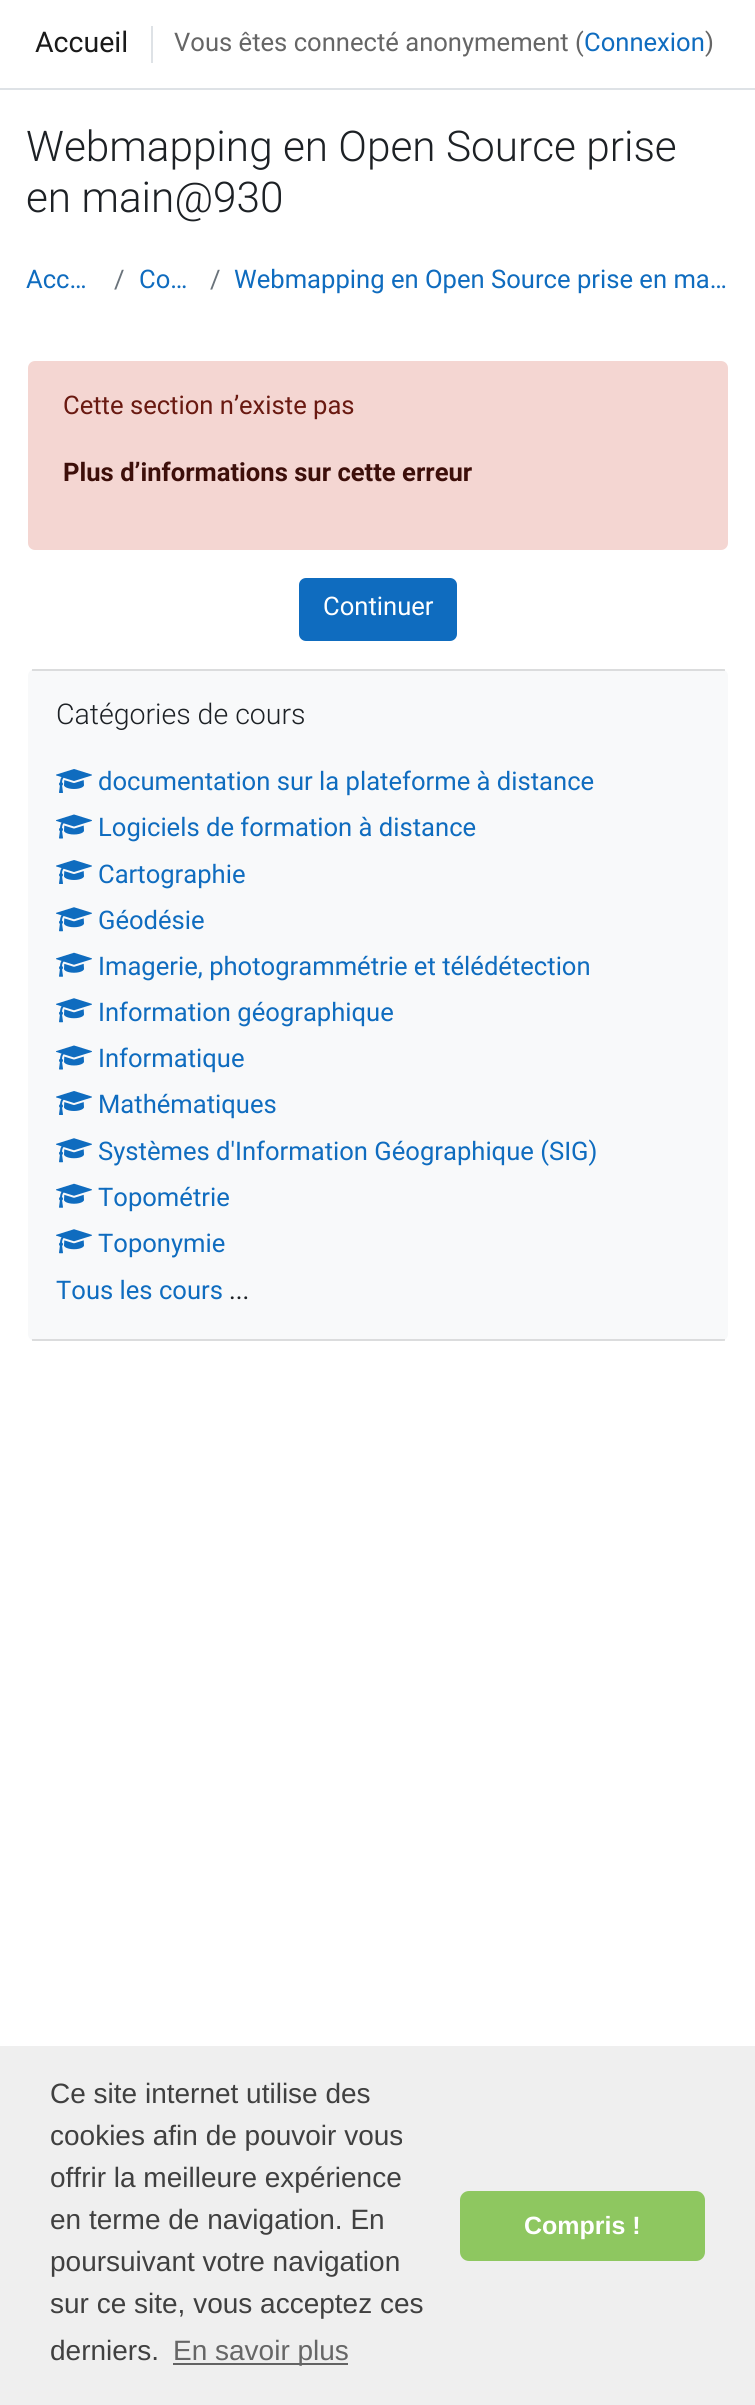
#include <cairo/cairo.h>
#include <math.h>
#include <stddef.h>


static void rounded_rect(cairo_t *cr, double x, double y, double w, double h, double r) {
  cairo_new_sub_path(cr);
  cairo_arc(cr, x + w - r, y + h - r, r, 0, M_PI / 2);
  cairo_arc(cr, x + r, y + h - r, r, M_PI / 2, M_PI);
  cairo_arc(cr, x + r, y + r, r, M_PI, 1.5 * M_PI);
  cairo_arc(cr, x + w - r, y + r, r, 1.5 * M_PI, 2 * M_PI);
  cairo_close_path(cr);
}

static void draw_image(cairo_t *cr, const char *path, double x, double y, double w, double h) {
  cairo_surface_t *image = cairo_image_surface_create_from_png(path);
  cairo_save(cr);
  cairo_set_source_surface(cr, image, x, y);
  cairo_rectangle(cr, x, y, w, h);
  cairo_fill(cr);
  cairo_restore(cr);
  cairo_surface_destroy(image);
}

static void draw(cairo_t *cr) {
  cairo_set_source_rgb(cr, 1, 1, 1);
  cairo_paint(cr);
  cairo_set_source_rgb(cr, 222 / 255.0, 226 / 255.0, 230 / 255.0);
  cairo_rectangle(cr, 0, 88, 755, 2);
  cairo_fill(cr);
  cairo_rectangle(cr, 151, 26, 2, 37);
  cairo_fill(cr);
  cairo_set_source_rgb(cr, 244 / 255.0, 214 / 255.0, 210 / 255.0);
  rounded_rect(cr, 28, 361, 700, 189, 7);
  cairo_fill(cr);
  cairo_set_source_rgb(cr, 15 / 255.0, 108 / 255.0, 191 / 255.0);
  rounded_rect(cr, 300, 579, 156, 61, 6);
  cairo_fill_preserve(cr);
  cairo_stroke(cr);
  cairo_set_source_rgb(cr, 248 / 255.0, 249 / 255.0, 250 / 255.0);
  rounded_rect(cr, 28, 669, 700, 672, 7);
  cairo_fill(cr);
  cairo_set_source_rgba(cr, 0, 0, 0, 0.12);
  cairo_rectangle(cr, 32, 669, 693, 2);
  cairo_fill(cr);
  cairo_rectangle(cr, 32, 1339, 693, 2);
  cairo_fill(cr);
  draw_image(cr, "images/1.png", 56, 769, 36, 24);
  draw_image(cr, "images/2.png", 56, 814, 36, 25);
  draw_image(cr, "images/1.png", 56, 860, 36, 24);
  draw_image(cr, "images/3.png", 56, 907, 36, 25);
  draw_image(cr, "images/4.png", 56, 952, 36, 25);
  draw_image(cr, "images/3.png", 56, 998, 36, 25);
  draw_image(cr, "images/2.png", 56, 1045, 36, 25);
  draw_image(cr, "images/1.png", 56, 1091, 36, 24);
  draw_image(cr, "images/3.png", 56, 1138, 36, 25);
  draw_image(cr, "images/4.png", 56, 1183, 36, 25);
  draw_image(cr, "images/3.png", 56, 1229, 36, 25);
  cairo_set_source_rgb(cr, 239 / 255.0, 239 / 255.0, 239 / 255.0);
  cairo_rectangle(cr, 0, 2046, 755, 359);
  cairo_fill(cr);
  cairo_set_source_rgb(cr, 99 / 255.0, 99 / 255.0, 99 / 255.0);
  cairo_rectangle(cr, 173, 2363, 175, 2);
  cairo_fill(cr);
  cairo_set_source_rgb(cr, 142 / 255.0, 199 / 255.0, 96 / 255.0);
  rounded_rect(cr, 460, 2191, 245, 70, 9);
  cairo_fill(cr);
  cairo_select_font_face(cr, "Roboto", CAIRO_FONT_SLANT_NORMAL, CAIRO_FONT_WEIGHT_NORMAL);
  cairo_set_font_size(cr, 28.5);
  cairo_set_source_rgb(cr, 26 / 255.0, 26 / 255.0, 26 / 255.0);
  cairo_move_to(cr, 35, 52);
  cairo_show_text(cr, "Accueil");
  cairo_set_font_size(cr, 25.6);
  cairo_set_source_rgb(cr, 102 / 255.0, 102 / 255.0, 102 / 255.0);
  cairo_move_to(cr, 174, 51);
  cairo_show_text(cr, "Vous êtes connecté anonymement (");
  cairo_set_source_rgb(cr, 15 / 255.0, 108 / 255.0, 191 / 255.0);
  cairo_move_to(cr, 584, 51);
  cairo_show_text(cr, "Connexion");
  cairo_set_source_rgb(cr, 102 / 255.0, 102 / 255.0, 102 / 255.0);
  cairo_move_to(cr, 705, 51);
  cairo_show_text(cr, ")");
  cairo_select_font_face(cr, "Roboto Light", CAIRO_FONT_SLANT_NORMAL, CAIRO_FONT_WEIGHT_NORMAL);
  cairo_set_font_size(cr, 42.3);
  cairo_set_source_rgb(cr, 29 / 255.0, 33 / 255.0, 37 / 255.0);
  cairo_move_to(cr, 26, 161);
  cairo_show_text(cr, "Webmapping en Open Source prise");
  cairo_move_to(cr, 26, 212);
  cairo_show_text(cr, "en main@930");
  cairo_select_font_face(cr, "Roboto", CAIRO_FONT_SLANT_NORMAL, CAIRO_FONT_WEIGHT_NORMAL);
  cairo_set_font_size(cr, 25.6);
  cairo_set_source_rgb(cr, 15 / 255.0, 108 / 255.0, 191 / 255.0);
  cairo_move_to(cr, 26, 288);
  cairo_show_text(cr, "Acc…");
  cairo_set_source_rgb(cr, 106 / 255.0, 115 / 255.0, 123 / 255.0);
  cairo_move_to(cr, 114, 288);
  cairo_show_text(cr, "/");
  cairo_set_source_rgb(cr, 15 / 255.0, 108 / 255.0, 191 / 255.0);
  cairo_move_to(cr, 139, 288);
  cairo_show_text(cr, "Co…");
  cairo_set_source_rgb(cr, 106 / 255.0, 115 / 255.0, 123 / 255.0);
  cairo_move_to(cr, 210, 288);
  cairo_show_text(cr, "/");
  cairo_set_source_rgb(cr, 15 / 255.0, 108 / 255.0, 191 / 255.0);
  cairo_move_to(cr, 234, 288);
  cairo_show_text(cr, "Webmapping en Open Source prise en ma…");
  cairo_set_source_rgb(cr, 105 / 255.0, 25 / 255.0, 17 / 255.0);
  cairo_move_to(cr, 63, 414);
  cairo_show_text(cr, "Cette section n’existe pas");
  cairo_select_font_face(cr, "Roboto", CAIRO_FONT_SLANT_NORMAL, CAIRO_FONT_WEIGHT_BOLD);
  cairo_set_source_rgb(cr, 61 / 255.0, 15 / 255.0, 10 / 255.0);
  cairo_move_to(cr, 63, 481);
  cairo_show_text(cr, "Plus d’informations sur cette erreur");
  cairo_select_font_face(cr, "Roboto", CAIRO_FONT_SLANT_NORMAL, CAIRO_FONT_WEIGHT_NORMAL);
  cairo_set_source_rgb(cr, 1, 1, 1);
  cairo_move_to(cr, 323, 615);
  cairo_show_text(cr, "Continuer");
  cairo_select_font_face(cr, "Roboto Light", CAIRO_FONT_SLANT_NORMAL, CAIRO_FONT_WEIGHT_NORMAL);
  cairo_set_font_size(cr, 28.5);
  cairo_set_source_rgb(cr, 29 / 255.0, 33 / 255.0, 37 / 255.0);
  cairo_move_to(cr, 56, 724);
  cairo_show_text(cr, "Catégories de cours");
  cairo_select_font_face(cr, "Roboto", CAIRO_FONT_SLANT_NORMAL, CAIRO_FONT_WEIGHT_NORMAL);
  cairo_set_font_size(cr, 25.6);
  cairo_set_source_rgb(cr, 15 / 255.0, 108 / 255.0, 191 / 255.0);
  cairo_move_to(cr, 98, 790);
  cairo_show_text(cr, "documentation sur la plateforme à distance");
  cairo_move_to(cr, 98, 836);
  cairo_show_text(cr, "Logiciels de formation à distance");
  cairo_move_to(cr, 98, 883);
  cairo_show_text(cr, "Cartographie");
  cairo_move_to(cr, 98, 929);
  cairo_show_text(cr, "Géodésie");
  cairo_move_to(cr, 98, 975);
  cairo_show_text(cr, "Imagerie, photogrammétrie et télédétection");
  cairo_move_to(cr, 98, 1021);
  cairo_show_text(cr, "Information géographique");
  cairo_move_to(cr, 98, 1067);
  cairo_show_text(cr, "Informatique");
  cairo_move_to(cr, 98, 1113);
  cairo_show_text(cr, "Mathématiques");
  cairo_move_to(cr, 98, 1160);
  cairo_show_text(cr, "Systèmes d'Information Géographique (SIG)");
  cairo_move_to(cr, 98, 1206);
  cairo_show_text(cr, "Topométrie");
  cairo_move_to(cr, 98, 1252);
  cairo_show_text(cr, "Toponymie");
  cairo_move_to(cr, 56, 1299);
  cairo_show_text(cr, "Tous les cours");
  cairo_set_source_rgb(cr, 29 / 255.0, 33 / 255.0, 37 / 255.0);
  cairo_move_to(cr, 229, 1299);
  cairo_show_text(cr, "...");
  cairo_select_font_face(cr, "Liberation Sans", CAIRO_FONT_SLANT_NORMAL, CAIRO_FONT_WEIGHT_NORMAL);
  cairo_set_font_size(cr, 28);
  cairo_set_source_rgb(cr, 64 / 255.0, 64 / 255.0, 64 / 255.0);
  cairo_move_to(cr, 50, 2103);
  cairo_show_text(cr, "Ce site internet utilise des");
  cairo_move_to(cr, 50, 2145);
  cairo_show_text(cr, "cookies afin de pouvoir vous");
  cairo_move_to(cr, 50, 2187);
  cairo_show_text(cr, "offrir la meilleure expérience");
  cairo_move_to(cr, 50, 2229);
  cairo_show_text(cr, "en terme de navigation. En");
  cairo_move_to(cr, 50, 2271);
  cairo_show_text(cr, "poursuivant votre navigation");
  cairo_move_to(cr, 50, 2313);
  cairo_show_text(cr, "sur ce site, vous acceptez ces");
  cairo_move_to(cr, 50, 2360);
  cairo_show_text(cr, "derniers.");
  cairo_set_source_rgb(cr, 102 / 255.0, 102 / 255.0, 102 / 255.0);
  cairo_move_to(cr, 173, 2360);
  cairo_show_text(cr, "En savoir plus");
  cairo_select_font_face(cr, "Liberation Sans", CAIRO_FONT_SLANT_NORMAL, CAIRO_FONT_WEIGHT_BOLD);
  cairo_set_font_size(cr, 25);
  cairo_set_source_rgb(cr, 1, 1, 1);
  cairo_move_to(cr, 524, 2234);
  cairo_show_text(cr, "Compris !");
}

int main(void) {
  cairo_surface_t *surface = cairo_image_surface_create(CAIRO_FORMAT_RGB24, 755, 2405);
  cairo_t *cr = cairo_create(surface);
  cairo_font_options_t *options = cairo_font_options_create();
  cairo_font_options_set_hint_metrics(options, CAIRO_HINT_METRICS_OFF);
  cairo_font_options_set_hint_style(options, CAIRO_HINT_STYLE_NONE);
  cairo_set_font_options(cr, options);
  cairo_set_miter_limit(cr, 4);
  draw(cr);
  cairo_surface_write_to_png(surface, "out.png");
  cairo_font_options_destroy(options);
  cairo_destroy(cr);
  cairo_surface_destroy(surface);
  return 0;
}
